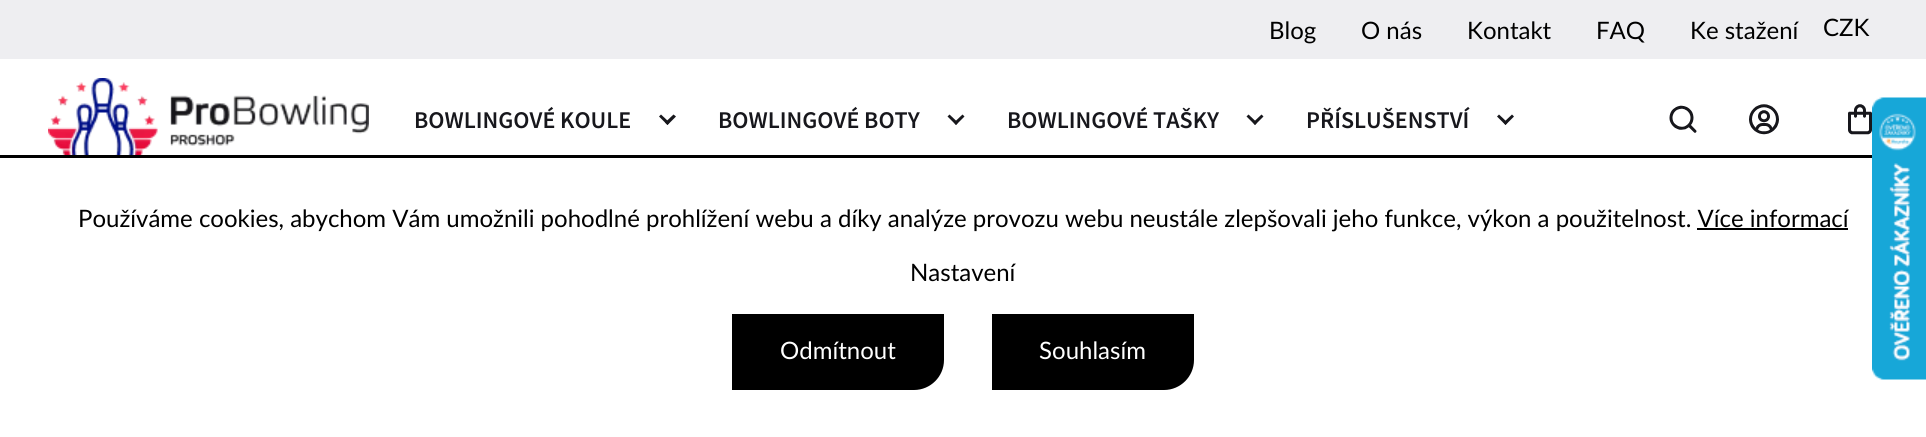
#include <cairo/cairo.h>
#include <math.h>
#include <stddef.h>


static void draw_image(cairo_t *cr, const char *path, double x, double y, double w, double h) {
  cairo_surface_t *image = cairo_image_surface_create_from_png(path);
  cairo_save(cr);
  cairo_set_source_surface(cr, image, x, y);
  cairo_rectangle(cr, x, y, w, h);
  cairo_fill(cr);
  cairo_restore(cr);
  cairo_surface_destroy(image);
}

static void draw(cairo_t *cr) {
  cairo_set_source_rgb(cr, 1, 1, 1);
  cairo_paint(cr);
  cairo_set_source_rgb(cr, 238 / 255.0, 238 / 255.0, 241 / 255.0);
  cairo_rectangle(cr, 0, 0, 1926, 59);
  cairo_fill(cr);
  draw_image(cr, "images/1.png", 48, 78, 321, 77);
  cairo_set_source_rgb(cr, 23 / 255.0, 23 / 255.0, 28 / 255.0);
  cairo_new_path(cr);
  cairo_move_to(cr, 673.5, 114.5);
  cairo_line_to(cr, 676, 116.5);
  cairo_line_to(cr, 667.5, 125);
  cairo_line_to(cr, 665, 122.5);
  cairo_close_path(cr);
  cairo_fill(cr);
  cairo_new_path(cr);
  cairo_move_to(cr, 661, 114.5);
  cairo_line_to(cr, 669.5, 122.5);
  cairo_line_to(cr, 667.5, 125);
  cairo_line_to(cr, 659, 116.5);
  cairo_close_path(cr);
  cairo_fill(cr);
  cairo_new_path(cr);
  cairo_move_to(cr, 962.5, 114.5);
  cairo_line_to(cr, 964.5, 116.5);
  cairo_line_to(cr, 956, 125);
  cairo_line_to(cr, 954, 122.5);
  cairo_close_path(cr);
  cairo_fill(cr);
  cairo_new_path(cr);
  cairo_move_to(cr, 949.5, 114.5);
  cairo_line_to(cr, 958, 122.5);
  cairo_line_to(cr, 956, 125);
  cairo_line_to(cr, 947.5, 116.5);
  cairo_close_path(cr);
  cairo_fill(cr);
  cairo_new_path(cr);
  cairo_move_to(cr, 1261.5, 114.5);
  cairo_line_to(cr, 1263.5, 116.5);
  cairo_line_to(cr, 1255, 125);
  cairo_line_to(cr, 1253, 122.5);
  cairo_close_path(cr);
  cairo_fill(cr);
  cairo_new_path(cr);
  cairo_move_to(cr, 1248.5, 114.5);
  cairo_line_to(cr, 1257, 122.5);
  cairo_line_to(cr, 1255, 125);
  cairo_line_to(cr, 1246.5, 116.5);
  cairo_close_path(cr);
  cairo_fill(cr);
  cairo_new_path(cr);
  cairo_move_to(cr, 1512, 114.5);
  cairo_line_to(cr, 1514, 116.5);
  cairo_line_to(cr, 1505.5, 125);
  cairo_line_to(cr, 1503.5, 122.5);
  cairo_close_path(cr);
  cairo_fill(cr);
  cairo_new_path(cr);
  cairo_move_to(cr, 1499, 114.5);
  cairo_line_to(cr, 1507.5, 122.5);
  cairo_line_to(cr, 1505.5, 125);
  cairo_line_to(cr, 1497, 116.5);
  cairo_close_path(cr);
  cairo_fill(cr);
  draw_image(cr, "images/2.png", 1669, 105, 28, 28);
  draw_image(cr, "images/3.png", 1749, 104, 30, 31);
  draw_image(cr, "images/4.png", 1848, 104, 24, 31);
  cairo_set_source_rgb(cr, 0, 0, 0);
  cairo_rectangle(cr, 0, 155, 1872, 3);
  cairo_fill(cr);
  cairo_rectangle(cr, 1697, 228, 151, 2);
  cairo_fill(cr);
  cairo_new_path(cr);
  cairo_move_to(cr, 732, 314);
  cairo_line_to(cr, 944, 314);
  cairo_line_to(cr, 944, 360);
  cairo_curve_to(cr, 944, 376.5, 930.5, 390, 914, 390);
  cairo_line_to(cr, 732, 390);
  cairo_close_path(cr);
  cairo_fill(cr);
  cairo_new_path(cr);
  cairo_move_to(cr, 992, 314);
  cairo_line_to(cr, 1194, 314);
  cairo_line_to(cr, 1194, 360);
  cairo_curve_to(cr, 1194, 376.5, 1180.5, 390, 1164, 390);
  cairo_line_to(cr, 992, 390);
  cairo_close_path(cr);
  cairo_fill(cr);
  draw_image(cr, "images/5.png", 1872, 97, 54, 283);
  cairo_select_font_face(cr, "Lato", CAIRO_FONT_SLANT_NORMAL, CAIRO_FONT_WEIGHT_NORMAL);
  cairo_set_font_size(cr, 24);
  cairo_move_to(cr, 1269, 39);
  cairo_show_text(cr, "Blog");
  cairo_move_to(cr, 1361, 39);
  cairo_show_text(cr, "O nás");
  cairo_move_to(cr, 1467, 39);
  cairo_show_text(cr, "Kontakt");
  cairo_move_to(cr, 1596, 39);
  cairo_show_text(cr, "FAQ");
  cairo_move_to(cr, 1690, 39);
  cairo_show_text(cr, "Ke stažení");
  cairo_select_font_face(cr, "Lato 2", CAIRO_FONT_SLANT_NORMAL, CAIRO_FONT_WEIGHT_NORMAL);
  cairo_move_to(cr, 1823, 36);
  cairo_show_text(cr, "CZK");
  cairo_select_font_face(cr, "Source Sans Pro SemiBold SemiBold", CAIRO_FONT_SLANT_NORMAL, CAIRO_FONT_WEIGHT_NORMAL);
  cairo_set_source_rgb(cr, 23 / 255.0, 23 / 255.0, 28 / 255.0);
  cairo_move_to(cr, 414, 128);
  cairo_show_text(cr, "BOWLINGOVÉ KOULE");
  cairo_move_to(cr, 718, 128);
  cairo_show_text(cr, "BOWLINGOVÉ BOTY");
  cairo_move_to(cr, 1007, 128);
  cairo_show_text(cr, "BOWLINGOVÉ TAŠKY");
  cairo_move_to(cr, 1306, 128);
  cairo_show_text(cr, "PŘÍSLUŠENSTVÍ");
  cairo_select_font_face(cr, "Lato 2", CAIRO_FONT_SLANT_NORMAL, CAIRO_FONT_WEIGHT_NORMAL);
  cairo_set_source_rgb(cr, 0, 0, 0);
  cairo_move_to(cr, 78, 227);
  cairo_show_text(cr, "Používáme cookies, abychom Vám umožnili pohodlné prohlížení webu a díky analýze provozu webu neustále zlepšovali jeho funkce, výkon a použitelnost. Více informací");
  cairo_move_to(cr, 910, 281);
  cairo_show_text(cr, "Nastavení");
  cairo_set_source_rgb(cr, 1, 1, 1);
  cairo_move_to(cr, 780, 359);
  cairo_show_text(cr, "Odmítnout");
  cairo_move_to(cr, 1039, 359);
  cairo_show_text(cr, "Souhlasím");
}

int main(void) {
  cairo_surface_t *surface = cairo_image_surface_create(CAIRO_FORMAT_RGB24, 1926, 437);
  cairo_t *cr = cairo_create(surface);
  cairo_font_options_t *options = cairo_font_options_create();
  cairo_font_options_set_hint_metrics(options, CAIRO_HINT_METRICS_OFF);
  cairo_font_options_set_hint_style(options, CAIRO_HINT_STYLE_NONE);
  cairo_set_font_options(cr, options);
  cairo_set_miter_limit(cr, 4);
  draw(cr);
  cairo_surface_write_to_png(surface, "out.png");
  cairo_font_options_destroy(options);
  cairo_destroy(cr);
  cairo_surface_destroy(surface);
  return 0;
}
